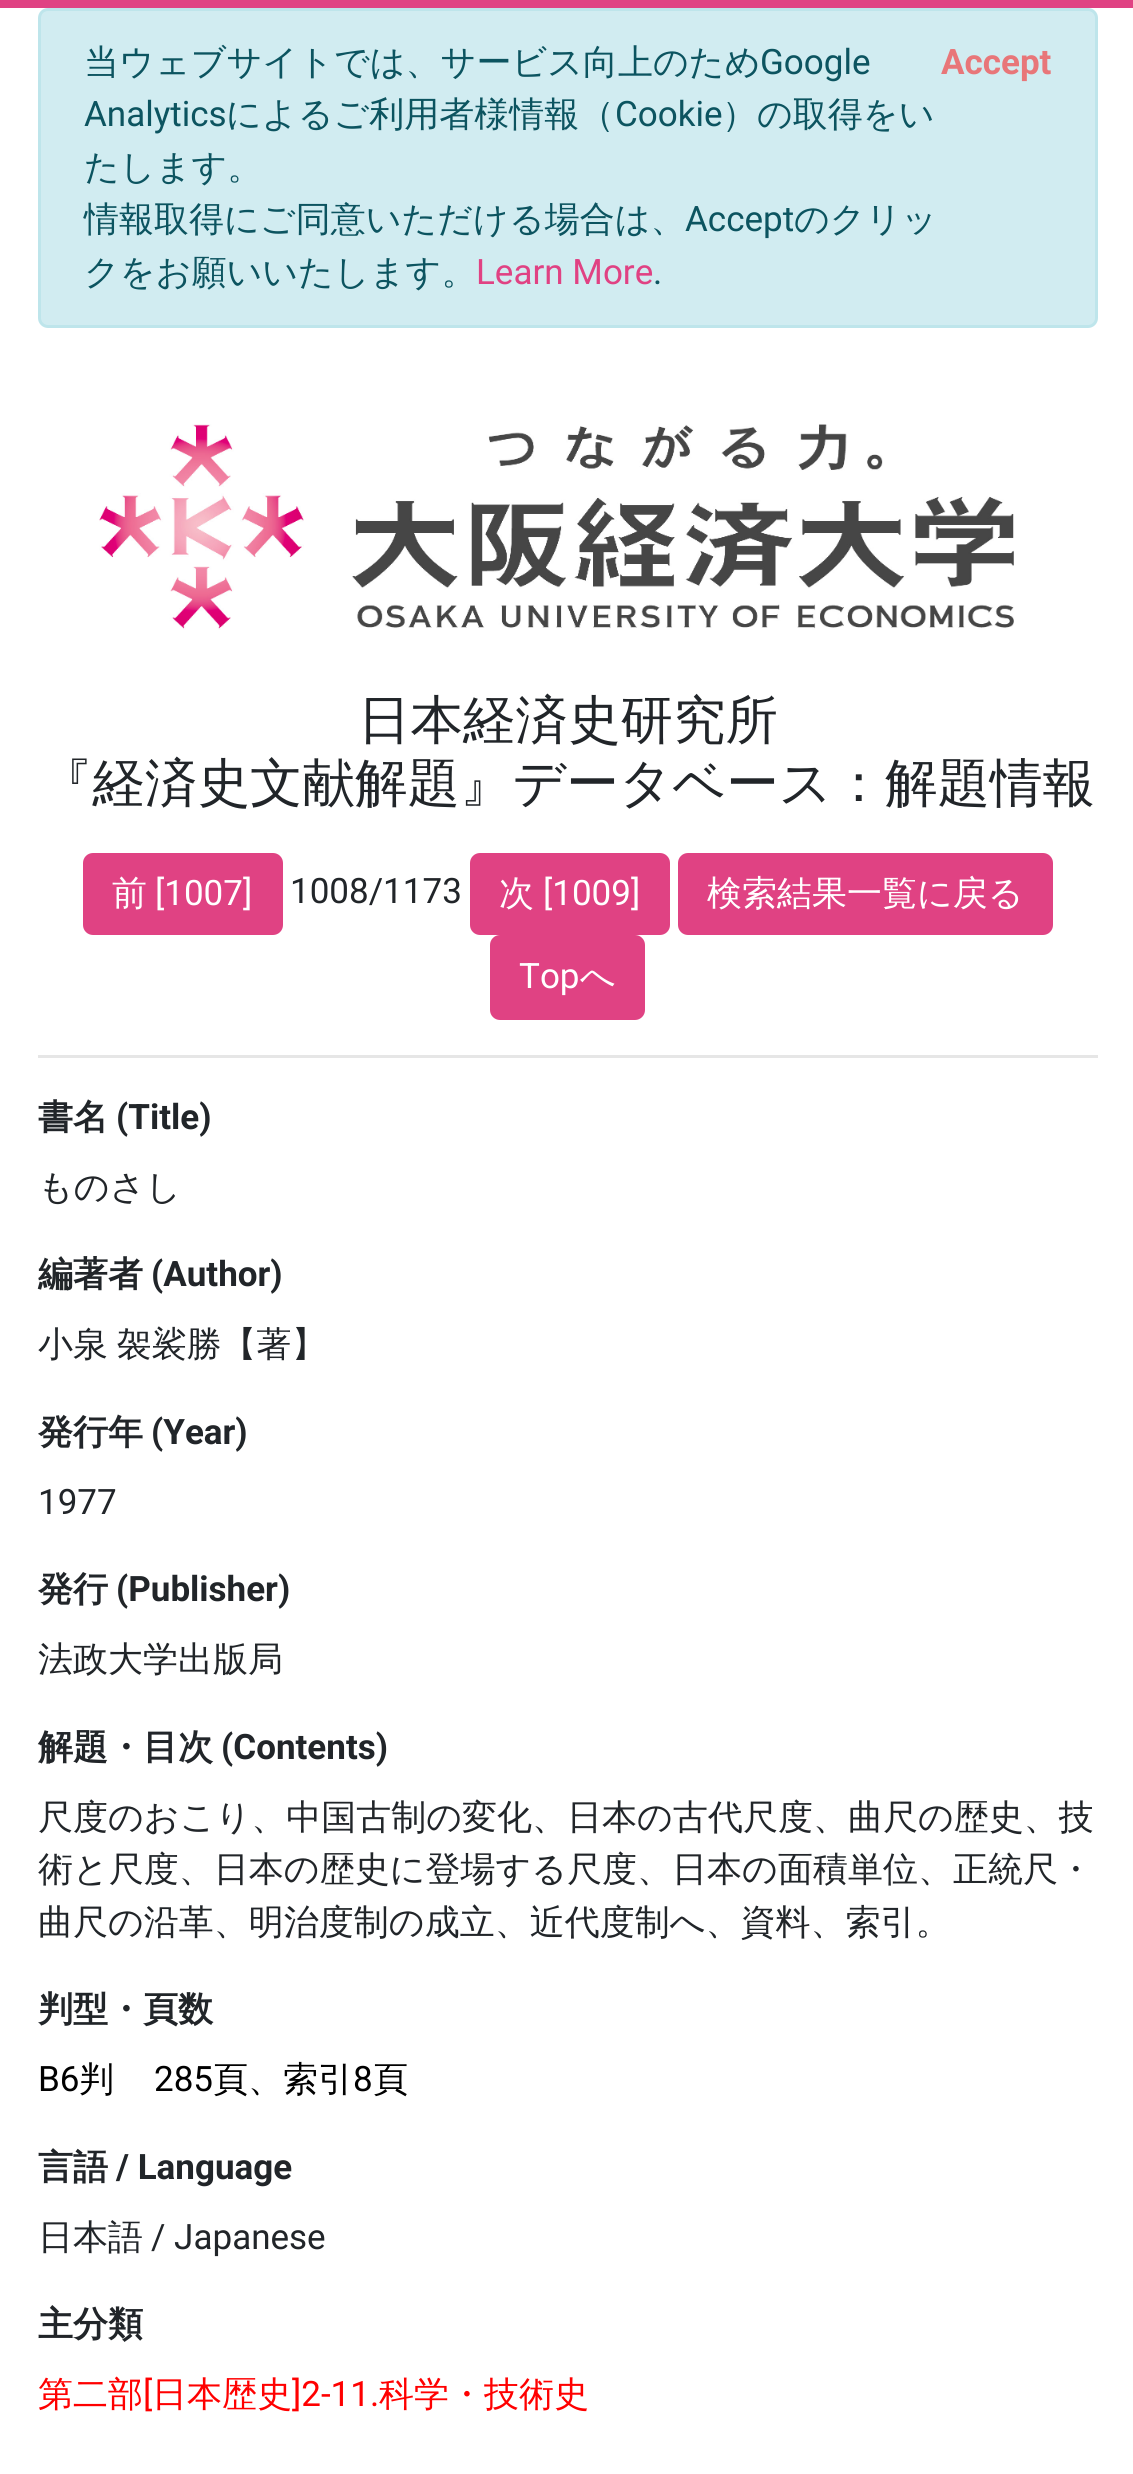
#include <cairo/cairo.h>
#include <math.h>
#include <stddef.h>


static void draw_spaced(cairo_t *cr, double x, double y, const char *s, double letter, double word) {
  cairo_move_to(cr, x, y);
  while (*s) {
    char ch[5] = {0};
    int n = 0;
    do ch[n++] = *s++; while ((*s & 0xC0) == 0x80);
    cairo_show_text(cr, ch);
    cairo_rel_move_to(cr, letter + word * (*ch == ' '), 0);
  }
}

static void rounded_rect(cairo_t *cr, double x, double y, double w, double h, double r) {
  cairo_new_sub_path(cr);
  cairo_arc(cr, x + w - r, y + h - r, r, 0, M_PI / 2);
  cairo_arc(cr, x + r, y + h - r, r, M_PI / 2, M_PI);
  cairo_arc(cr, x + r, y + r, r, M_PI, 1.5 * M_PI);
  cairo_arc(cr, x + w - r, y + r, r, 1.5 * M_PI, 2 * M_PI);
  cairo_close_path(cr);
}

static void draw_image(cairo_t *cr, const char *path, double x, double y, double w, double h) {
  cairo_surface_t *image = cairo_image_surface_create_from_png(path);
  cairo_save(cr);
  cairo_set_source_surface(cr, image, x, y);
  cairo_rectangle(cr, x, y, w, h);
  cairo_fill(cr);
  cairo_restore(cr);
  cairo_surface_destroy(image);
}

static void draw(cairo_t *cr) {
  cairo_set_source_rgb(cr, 1, 1, 1);
  cairo_paint(cr);
  cairo_set_source_rgb(cr, 224 / 255.0, 66 / 255.0, 131 / 255.0);
  cairo_rectangle(cr, 0, 0, 1133, 8);
  cairo_fill(cr);
  cairo_set_source_rgb(cr, 209 / 255.0, 236 / 255.0, 241 / 255.0);
  rounded_rect(cr, 39.5, 9.5, 1057, 317, 8.5);
  cairo_fill_preserve(cr);
  cairo_set_source_rgb(cr, 190 / 255.0, 229 / 255.0, 235 / 255.0);
  cairo_set_line_width(cr, 3);
  cairo_stroke(cr);
  draw_image(cr, "images/1.png", 99, 424, 915, 206);
  cairo_set_source_rgb(cr, 224 / 255.0, 66 / 255.0, 131 / 255.0);
  rounded_rect(cr, 84.5, 854.5, 197, 79, 8.5);
  cairo_fill_preserve(cr);
  cairo_stroke(cr);
  rounded_rect(cr, 471.5, 854.5, 197, 79, 8.5);
  cairo_fill_preserve(cr);
  cairo_stroke(cr);
  rounded_rect(cr, 679.5, 854.5, 372, 79, 8.5);
  cairo_fill_preserve(cr);
  cairo_stroke(cr);
  rounded_rect(cr, 491.5, 936.5, 152, 82, 8.5);
  cairo_fill_preserve(cr);
  cairo_stroke(cr);
  cairo_set_source_rgb(cr, 230 / 255.0, 230 / 255.0, 230 / 255.0);
  cairo_rectangle(cr, 38, 1055, 1060, 3);
  cairo_fill(cr);
  cairo_select_font_face(cr, "WenQuanYi Zen Hei Medium", CAIRO_FONT_SLANT_NORMAL, CAIRO_FONT_WEIGHT_NORMAL);
  cairo_set_font_size(cr, 35);
  cairo_set_source_rgb(cr, 12 / 255.0, 84 / 255.0, 96 / 255.0);
  cairo_move_to(cr, 84, 74);
  cairo_show_text(cr, "当ウェブサイトでは、サービス向上のため");
  cairo_select_font_face(cr, "Roboto", CAIRO_FONT_SLANT_NORMAL, CAIRO_FONT_WEIGHT_NORMAL);
  cairo_move_to(cr, 760, 74);
  cairo_show_text(cr, "Google");
  cairo_select_font_face(cr, "Roboto", CAIRO_FONT_SLANT_NORMAL, CAIRO_FONT_WEIGHT_BOLD);
  cairo_set_source_rgb(cr, 232 / 255.0, 118 / 255.0, 121 / 255.0);
  cairo_move_to(cr, 941, 74);
  cairo_show_text(cr, "Accept");
  cairo_select_font_face(cr, "Roboto", CAIRO_FONT_SLANT_NORMAL, CAIRO_FONT_WEIGHT_NORMAL);
  cairo_set_source_rgb(cr, 12 / 255.0, 84 / 255.0, 96 / 255.0);
  cairo_move_to(cr, 84, 126);
  cairo_show_text(cr, "Analytics");
  cairo_select_font_face(cr, "WenQuanYi Zen Hei Medium", CAIRO_FONT_SLANT_NORMAL, CAIRO_FONT_WEIGHT_NORMAL);
  cairo_move_to(cr, 226, 126);
  cairo_show_text(cr, "によるご利用者様情報（");
  cairo_select_font_face(cr, "Roboto", CAIRO_FONT_SLANT_NORMAL, CAIRO_FONT_WEIGHT_NORMAL);
  cairo_move_to(cr, 615, 126);
  cairo_show_text(cr, "Cookie");
  cairo_select_font_face(cr, "WenQuanYi Zen Hei Medium", CAIRO_FONT_SLANT_NORMAL, CAIRO_FONT_WEIGHT_NORMAL);
  cairo_move_to(cr, 722, 126);
  cairo_show_text(cr, "）の取得をい");
  cairo_move_to(cr, 84, 179);
  cairo_show_text(cr, "たします。");
  cairo_move_to(cr, 84, 231);
  cairo_show_text(cr, "情報取得にご同意いただける場合は、");
  cairo_select_font_face(cr, "Roboto", CAIRO_FONT_SLANT_NORMAL, CAIRO_FONT_WEIGHT_NORMAL);
  cairo_move_to(cr, 685, 231);
  cairo_show_text(cr, "Accept");
  cairo_select_font_face(cr, "WenQuanYi Zen Hei Medium", CAIRO_FONT_SLANT_NORMAL, CAIRO_FONT_WEIGHT_NORMAL);
  cairo_move_to(cr, 794, 231);
  cairo_show_text(cr, "のクリッ");
  cairo_move_to(cr, 84, 284);
  cairo_show_text(cr, "クをお願いいたします。");
  cairo_select_font_face(cr, "Roboto", CAIRO_FONT_SLANT_NORMAL, CAIRO_FONT_WEIGHT_NORMAL);
  cairo_set_source_rgb(cr, 224 / 255.0, 66 / 255.0, 131 / 255.0);
  cairo_move_to(cr, 476, 284);
  cairo_show_text(cr, "Learn More");
  cairo_set_source_rgb(cr, 12 / 255.0, 84 / 255.0, 96 / 255.0);
  cairo_move_to(cr, 653, 284);
  cairo_show_text(cr, ".");
  cairo_select_font_face(cr, "WenQuanYi Zen Hei Medium", CAIRO_FONT_SLANT_NORMAL, CAIRO_FONT_WEIGHT_NORMAL);
  cairo_set_font_size(cr, 52.5);
  cairo_set_source_rgb(cr, 33 / 255.0, 37 / 255.0, 41 / 255.0);
  cairo_move_to(cr, 358, 738);
  cairo_show_text(cr, "日本経済史研究所");
  cairo_move_to(cr, 40, 801);
  cairo_show_text(cr, "『経済史文献解題』データベース：解題情報");
  cairo_set_font_size(cr, 35);
  cairo_set_source_rgb(cr, 1, 1, 1);
  cairo_move_to(cr, 112, 905);
  cairo_show_text(cr, "前");
  cairo_select_font_face(cr, "Roboto", CAIRO_FONT_SLANT_NORMAL, CAIRO_FONT_WEIGHT_NORMAL);
  cairo_move_to(cr, 155, 905);
  cairo_show_text(cr, "[1007]");
  cairo_set_source_rgb(cr, 33 / 255.0, 37 / 255.0, 41 / 255.0);
  cairo_move_to(cr, 290, 903);
  cairo_show_text(cr, "1008/1173");
  cairo_select_font_face(cr, "WenQuanYi Zen Hei Medium", CAIRO_FONT_SLANT_NORMAL, CAIRO_FONT_WEIGHT_NORMAL);
  cairo_set_source_rgb(cr, 1, 1, 1);
  cairo_move_to(cr, 499, 905);
  cairo_show_text(cr, "次");
  cairo_select_font_face(cr, "Roboto", CAIRO_FONT_SLANT_NORMAL, CAIRO_FONT_WEIGHT_NORMAL);
  cairo_move_to(cr, 543, 905);
  cairo_show_text(cr, "[1009]");
  cairo_select_font_face(cr, "WenQuanYi Zen Hei Medium", CAIRO_FONT_SLANT_NORMAL, CAIRO_FONT_WEIGHT_NORMAL);
  cairo_move_to(cr, 707, 905);
  cairo_show_text(cr, "検索結果一覧に戻る");
  cairo_select_font_face(cr, "Roboto", CAIRO_FONT_SLANT_NORMAL, CAIRO_FONT_WEIGHT_NORMAL);
  cairo_move_to(cr, 519, 988);
  cairo_show_text(cr, "Top");
  cairo_select_font_face(cr, "WenQuanYi Zen Hei Medium", CAIRO_FONT_SLANT_NORMAL, CAIRO_FONT_WEIGHT_NORMAL);
  cairo_move_to(cr, 580, 988);
  cairo_show_text(cr, "へ");
  cairo_select_font_face(cr, "WenQuanYi Zen Hei", CAIRO_FONT_SLANT_NORMAL, CAIRO_FONT_WEIGHT_BOLD);
  cairo_set_source_rgb(cr, 33 / 255.0, 37 / 255.0, 41 / 255.0);
  cairo_move_to(cr, 38, 1129);
  cairo_show_text(cr, "書名");
  cairo_select_font_face(cr, "Roboto", CAIRO_FONT_SLANT_NORMAL, CAIRO_FONT_WEIGHT_BOLD);
  cairo_move_to(cr, 116, 1129);
  cairo_show_text(cr, "(Title)");
  cairo_select_font_face(cr, "WenQuanYi Zen Hei Medium", CAIRO_FONT_SLANT_NORMAL, CAIRO_FONT_WEIGHT_NORMAL);
  cairo_move_to(cr, 38, 1199);
  cairo_show_text(cr, "ものさし");
  cairo_select_font_face(cr, "WenQuanYi Zen Hei", CAIRO_FONT_SLANT_NORMAL, CAIRO_FONT_WEIGHT_BOLD);
  cairo_move_to(cr, 38, 1286);
  cairo_show_text(cr, "編著者");
  cairo_select_font_face(cr, "Roboto", CAIRO_FONT_SLANT_NORMAL, CAIRO_FONT_WEIGHT_BOLD);
  cairo_move_to(cr, 151, 1286);
  cairo_show_text(cr, "(Author)");
  cairo_select_font_face(cr, "WenQuanYi Zen Hei Medium", CAIRO_FONT_SLANT_NORMAL, CAIRO_FONT_WEIGHT_NORMAL);
  draw_spaced(cr, 38, 1356, "小泉 袈裟勝【著】", 0, -2);
  cairo_select_font_face(cr, "WenQuanYi Zen Hei", CAIRO_FONT_SLANT_NORMAL, CAIRO_FONT_WEIGHT_BOLD);
  cairo_move_to(cr, 38, 1444);
  cairo_show_text(cr, "発行年");
  cairo_select_font_face(cr, "Roboto", CAIRO_FONT_SLANT_NORMAL, CAIRO_FONT_WEIGHT_BOLD);
  cairo_move_to(cr, 151, 1444);
  cairo_show_text(cr, "(Year)");
  cairo_select_font_face(cr, "Roboto", CAIRO_FONT_SLANT_NORMAL, CAIRO_FONT_WEIGHT_NORMAL);
  cairo_move_to(cr, 38, 1514);
  cairo_show_text(cr, "1977");
  cairo_select_font_face(cr, "WenQuanYi Zen Hei", CAIRO_FONT_SLANT_NORMAL, CAIRO_FONT_WEIGHT_BOLD);
  cairo_move_to(cr, 38, 1601);
  cairo_show_text(cr, "発行");
  cairo_select_font_face(cr, "Roboto", CAIRO_FONT_SLANT_NORMAL, CAIRO_FONT_WEIGHT_BOLD);
  cairo_move_to(cr, 116, 1601);
  cairo_show_text(cr, "(Publisher)");
  cairo_select_font_face(cr, "WenQuanYi Zen Hei Medium", CAIRO_FONT_SLANT_NORMAL, CAIRO_FONT_WEIGHT_NORMAL);
  cairo_move_to(cr, 38, 1671);
  cairo_show_text(cr, "法政大学出版局");
  cairo_select_font_face(cr, "WenQuanYi Zen Hei", CAIRO_FONT_SLANT_NORMAL, CAIRO_FONT_WEIGHT_BOLD);
  cairo_move_to(cr, 38, 1759);
  cairo_show_text(cr, "解題・目次");
  cairo_select_font_face(cr, "Roboto", CAIRO_FONT_SLANT_NORMAL, CAIRO_FONT_WEIGHT_BOLD);
  cairo_move_to(cr, 221, 1759);
  cairo_show_text(cr, "(Contents)");
  cairo_select_font_face(cr, "WenQuanYi Zen Hei Medium", CAIRO_FONT_SLANT_NORMAL, CAIRO_FONT_WEIGHT_NORMAL);
  cairo_move_to(cr, 38, 1829);
  cairo_show_text(cr, "尺度のおこり、中国古制の変化、日本の古代尺度、曲尺の歴史、技");
  cairo_move_to(cr, 38, 1881);
  cairo_show_text(cr, "術と尺度、日本の歴史に登場する尺度、日本の面積単位、正統尺・");
  cairo_move_to(cr, 38, 1934);
  cairo_show_text(cr, "曲尺の沿革、明治度制の成立、近代度制へ、資料、索引。");
  cairo_select_font_face(cr, "WenQuanYi Zen Hei", CAIRO_FONT_SLANT_NORMAL, CAIRO_FONT_WEIGHT_BOLD);
  cairo_move_to(cr, 38, 2021);
  cairo_show_text(cr, "判型・頁数");
  cairo_select_font_face(cr, "Roboto", CAIRO_FONT_SLANT_NORMAL, CAIRO_FONT_WEIGHT_NORMAL);
  cairo_set_source_rgb(cr, 0, 0, 0);
  cairo_move_to(cr, 38, 2091);
  cairo_show_text(cr, "B6");
  cairo_select_font_face(cr, "WenQuanYi Zen Hei Medium", CAIRO_FONT_SLANT_NORMAL, CAIRO_FONT_WEIGHT_NORMAL);
  cairo_move_to(cr, 79, 2091);
  cairo_show_text(cr, "判");
  cairo_select_font_face(cr, "Roboto", CAIRO_FONT_SLANT_NORMAL, CAIRO_FONT_WEIGHT_NORMAL);
  cairo_move_to(cr, 154, 2091);
  cairo_show_text(cr, "285");
  cairo_select_font_face(cr, "WenQuanYi Zen Hei Medium", CAIRO_FONT_SLANT_NORMAL, CAIRO_FONT_WEIGHT_NORMAL);
  cairo_move_to(cr, 213, 2091);
  cairo_show_text(cr, "頁、索引");
  cairo_select_font_face(cr, "Roboto", CAIRO_FONT_SLANT_NORMAL, CAIRO_FONT_WEIGHT_NORMAL);
  cairo_move_to(cr, 353, 2091);
  cairo_show_text(cr, "8");
  cairo_select_font_face(cr, "WenQuanYi Zen Hei Medium", CAIRO_FONT_SLANT_NORMAL, CAIRO_FONT_WEIGHT_NORMAL);
  cairo_move_to(cr, 373, 2091);
  cairo_show_text(cr, "頁");
  cairo_select_font_face(cr, "WenQuanYi Zen Hei", CAIRO_FONT_SLANT_NORMAL, CAIRO_FONT_WEIGHT_BOLD);
  cairo_set_source_rgb(cr, 33 / 255.0, 37 / 255.0, 41 / 255.0);
  cairo_move_to(cr, 38, 2179);
  cairo_show_text(cr, "言語");
  cairo_select_font_face(cr, "Roboto", CAIRO_FONT_SLANT_NORMAL, CAIRO_FONT_WEIGHT_BOLD);
  cairo_move_to(cr, 116, 2179);
  cairo_show_text(cr, "/ Language");
  cairo_select_font_face(cr, "WenQuanYi Zen Hei Medium", CAIRO_FONT_SLANT_NORMAL, CAIRO_FONT_WEIGHT_NORMAL);
  cairo_move_to(cr, 38, 2249);
  cairo_show_text(cr, "日本語");
  cairo_select_font_face(cr, "Roboto", CAIRO_FONT_SLANT_NORMAL, CAIRO_FONT_WEIGHT_NORMAL);
  cairo_move_to(cr, 151, 2249);
  cairo_show_text(cr, "/ Japanese");
  cairo_select_font_face(cr, "WenQuanYi Zen Hei", CAIRO_FONT_SLANT_NORMAL, CAIRO_FONT_WEIGHT_BOLD);
  cairo_move_to(cr, 38, 2336);
  cairo_show_text(cr, "主分類");
  cairo_select_font_face(cr, "WenQuanYi Zen Hei Medium", CAIRO_FONT_SLANT_NORMAL, CAIRO_FONT_WEIGHT_NORMAL);
  cairo_set_source_rgb(cr, 1, 0, 0);
  cairo_move_to(cr, 38, 2406);
  cairo_show_text(cr, "第二部");
  cairo_select_font_face(cr, "Roboto", CAIRO_FONT_SLANT_NORMAL, CAIRO_FONT_WEIGHT_NORMAL);
  cairo_move_to(cr, 143, 2406);
  cairo_show_text(cr, "[");
  cairo_select_font_face(cr, "WenQuanYi Zen Hei Medium", CAIRO_FONT_SLANT_NORMAL, CAIRO_FONT_WEIGHT_NORMAL);
  cairo_move_to(cr, 152, 2406);
  cairo_show_text(cr, "日本歴史");
  cairo_select_font_face(cr, "Roboto", CAIRO_FONT_SLANT_NORMAL, CAIRO_FONT_WEIGHT_NORMAL);
  cairo_move_to(cr, 292, 2406);
  cairo_show_text(cr, "]2-11.");
  cairo_select_font_face(cr, "WenQuanYi Zen Hei Medium", CAIRO_FONT_SLANT_NORMAL, CAIRO_FONT_WEIGHT_NORMAL);
  cairo_move_to(cr, 379, 2406);
  cairo_show_text(cr, "科学・技術史");
}

int main(void) {
  cairo_surface_t *surface = cairo_image_surface_create(CAIRO_FORMAT_RGB24, 1133, 2474);
  cairo_t *cr = cairo_create(surface);
  cairo_font_options_t *options = cairo_font_options_create();
  cairo_font_options_set_hint_metrics(options, CAIRO_HINT_METRICS_OFF);
  cairo_font_options_set_hint_style(options, CAIRO_HINT_STYLE_NONE);
  cairo_set_font_options(cr, options);
  cairo_set_miter_limit(cr, 4);
  draw(cr);
  cairo_surface_write_to_png(surface, "out.png");
  cairo_font_options_destroy(options);
  cairo_destroy(cr);
  cairo_surface_destroy(surface);
  return 0;
}
